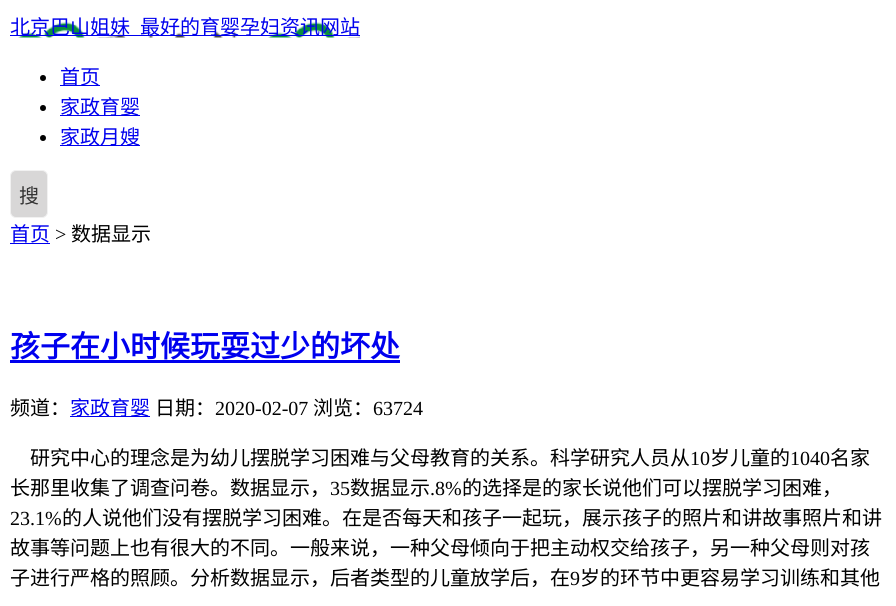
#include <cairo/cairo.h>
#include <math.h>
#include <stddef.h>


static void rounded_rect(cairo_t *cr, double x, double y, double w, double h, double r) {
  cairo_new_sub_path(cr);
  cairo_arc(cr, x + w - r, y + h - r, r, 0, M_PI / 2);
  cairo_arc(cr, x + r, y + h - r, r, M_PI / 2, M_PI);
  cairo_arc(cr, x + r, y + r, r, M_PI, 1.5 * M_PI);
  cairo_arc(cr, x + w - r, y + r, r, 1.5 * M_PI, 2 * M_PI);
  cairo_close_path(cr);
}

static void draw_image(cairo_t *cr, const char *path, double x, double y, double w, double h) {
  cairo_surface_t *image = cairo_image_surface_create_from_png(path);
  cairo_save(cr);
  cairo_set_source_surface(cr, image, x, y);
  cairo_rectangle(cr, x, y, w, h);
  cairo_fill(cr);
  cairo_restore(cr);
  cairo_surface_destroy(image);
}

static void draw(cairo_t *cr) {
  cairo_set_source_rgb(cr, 1, 1, 1);
  cairo_paint(cr);
  draw_image(cr, "images/1.png", 18, 22, 342, 16);
  cairo_set_source_rgb(cr, 0, 0, 238 / 255.0);
  cairo_rectangle(cr, 10, 35, 350, 1);
  cairo_fill(cr);
  cairo_set_source_rgb(cr, 0, 0, 0);
  cairo_arc(cr, 43, 78, 3, 0, 2 * M_PI);
  cairo_fill(cr);
  cairo_set_source_rgb(cr, 0, 0, 238 / 255.0);
  cairo_rectangle(cr, 60, 85, 40, 1);
  cairo_fill(cr);
  cairo_set_source_rgb(cr, 0, 0, 0);
  cairo_arc(cr, 43, 108, 3, 0, 2 * M_PI);
  cairo_fill(cr);
  cairo_set_source_rgb(cr, 0, 0, 238 / 255.0);
  cairo_rectangle(cr, 60, 115, 80, 1);
  cairo_fill(cr);
  cairo_set_source_rgb(cr, 0, 0, 0);
  cairo_arc(cr, 43, 138, 3, 0, 2 * M_PI);
  cairo_fill(cr);
  cairo_set_source_rgb(cr, 0, 0, 238 / 255.0);
  cairo_rectangle(cr, 60, 145, 80, 1);
  cairo_fill(cr);
  cairo_set_source_rgb(cr, 216 / 255.0, 215 / 255.0, 215 / 255.0);
  rounded_rect(cr, 10.5, 170.5, 37, 47, 5.5);
  cairo_fill_preserve(cr);
  cairo_set_source_rgb(cr, 241 / 255.0, 241 / 255.0, 241 / 255.0);
  cairo_set_line_width(cr, 1);
  cairo_stroke(cr);
  cairo_set_source_rgb(cr, 0, 0, 238 / 255.0);
  cairo_rectangle(cr, 10, 243, 40, 1);
  cairo_fill(cr);
  cairo_rectangle(cr, 10, 360, 390, 3);
  cairo_fill(cr);
  cairo_rectangle(cr, 70, 416, 80, 1);
  cairo_fill(cr);
  cairo_select_font_face(cr, "Noto Sans CJK SC", CAIRO_FONT_SLANT_NORMAL, CAIRO_FONT_WEIGHT_NORMAL);
  cairo_set_font_size(cr, 20);
  cairo_move_to(cr, 10, 34);
  cairo_show_text(cr, "北京巴山姐妹");
  cairo_move_to(cr, 140, 34);
  cairo_show_text(cr, "最好的育婴孕妇资讯网站");
  cairo_move_to(cr, 60, 84);
  cairo_show_text(cr, "首页");
  cairo_move_to(cr, 60, 114);
  cairo_show_text(cr, "家政育婴");
  cairo_move_to(cr, 60, 144);
  cairo_show_text(cr, "家政月嫂");
  cairo_set_source_rgb(cr, 51 / 255.0, 51 / 255.0, 51 / 255.0);
  cairo_move_to(cr, 19, 203);
  cairo_show_text(cr, "搜");
  cairo_set_source_rgb(cr, 0, 0, 238 / 255.0);
  cairo_move_to(cr, 10, 241);
  cairo_show_text(cr, "首页");
  cairo_select_font_face(cr, "Liberation Serif", CAIRO_FONT_SLANT_NORMAL, CAIRO_FONT_WEIGHT_NORMAL);
  cairo_set_source_rgb(cr, 0, 0, 0);
  cairo_move_to(cr, 55, 241);
  cairo_show_text(cr, ">");
  cairo_select_font_face(cr, "Noto Sans CJK SC", CAIRO_FONT_SLANT_NORMAL, CAIRO_FONT_WEIGHT_NORMAL);
  cairo_move_to(cr, 71, 241);
  cairo_show_text(cr, "数据显示");
  cairo_select_font_face(cr, "Noto Sans CJK SC", CAIRO_FONT_SLANT_NORMAL, CAIRO_FONT_WEIGHT_BOLD);
  cairo_set_font_size(cr, 30);
  cairo_set_source_rgb(cr, 0, 0, 238 / 255.0);
  cairo_move_to(cr, 10, 357);
  cairo_show_text(cr, "孩子在小时候玩耍过少的坏处");
  cairo_select_font_face(cr, "Noto Sans CJK SC", CAIRO_FONT_SLANT_NORMAL, CAIRO_FONT_WEIGHT_NORMAL);
  cairo_set_font_size(cr, 20);
  cairo_set_source_rgb(cr, 0, 0, 0);
  cairo_move_to(cr, 10, 415);
  cairo_show_text(cr, "频道：");
  cairo_set_source_rgb(cr, 0, 0, 238 / 255.0);
  cairo_move_to(cr, 70, 415);
  cairo_show_text(cr, "家政育婴");
  cairo_set_source_rgb(cr, 0, 0, 0);
  cairo_move_to(cr, 155, 415);
  cairo_show_text(cr, "日期：");
  cairo_select_font_face(cr, "Liberation Serif", CAIRO_FONT_SLANT_NORMAL, CAIRO_FONT_WEIGHT_NORMAL);
  cairo_move_to(cr, 215, 415);
  cairo_show_text(cr, "2020-02-07");
  cairo_select_font_face(cr, "Noto Sans CJK SC", CAIRO_FONT_SLANT_NORMAL, CAIRO_FONT_WEIGHT_NORMAL);
  cairo_move_to(cr, 313, 415);
  cairo_show_text(cr, "浏览：");
  cairo_select_font_face(cr, "Liberation Serif", CAIRO_FONT_SLANT_NORMAL, CAIRO_FONT_WEIGHT_NORMAL);
  cairo_move_to(cr, 373, 415);
  cairo_show_text(cr, "63724");
  cairo_select_font_face(cr, "Noto Sans CJK SC", CAIRO_FONT_SLANT_NORMAL, CAIRO_FONT_WEIGHT_NORMAL);
  cairo_move_to(cr, 30, 465);
  cairo_show_text(cr, "研究中心的理念是为幼儿摆脱学习困难与父母教育的关系。科学研究人员从");
  cairo_select_font_face(cr, "Liberation Serif", CAIRO_FONT_SLANT_NORMAL, CAIRO_FONT_WEIGHT_NORMAL);
  cairo_move_to(cr, 690, 465);
  cairo_show_text(cr, "10");
  cairo_select_font_face(cr, "Noto Sans CJK SC", CAIRO_FONT_SLANT_NORMAL, CAIRO_FONT_WEIGHT_NORMAL);
  cairo_move_to(cr, 710, 465);
  cairo_show_text(cr, "岁儿童的");
  cairo_select_font_face(cr, "Liberation Serif", CAIRO_FONT_SLANT_NORMAL, CAIRO_FONT_WEIGHT_NORMAL);
  cairo_move_to(cr, 790, 465);
  cairo_show_text(cr, "1040");
  cairo_select_font_face(cr, "Noto Sans CJK SC", CAIRO_FONT_SLANT_NORMAL, CAIRO_FONT_WEIGHT_NORMAL);
  cairo_move_to(cr, 830, 465);
  cairo_show_text(cr, "名家");
  cairo_move_to(cr, 10, 495);
  cairo_show_text(cr, "长那里收集了调查问卷。数据显示，");
  cairo_select_font_face(cr, "Liberation Serif", CAIRO_FONT_SLANT_NORMAL, CAIRO_FONT_WEIGHT_NORMAL);
  cairo_move_to(cr, 330, 495);
  cairo_show_text(cr, "35");
  cairo_select_font_face(cr, "Noto Sans CJK SC", CAIRO_FONT_SLANT_NORMAL, CAIRO_FONT_WEIGHT_NORMAL);
  cairo_move_to(cr, 350, 495);
  cairo_show_text(cr, "数据显示");
  cairo_select_font_face(cr, "Liberation Serif", CAIRO_FONT_SLANT_NORMAL, CAIRO_FONT_WEIGHT_NORMAL);
  cairo_move_to(cr, 430, 495);
  cairo_show_text(cr, ".8%");
  cairo_select_font_face(cr, "Noto Sans CJK SC", CAIRO_FONT_SLANT_NORMAL, CAIRO_FONT_WEIGHT_NORMAL);
  cairo_move_to(cr, 462, 495);
  cairo_show_text(cr, "的选择是的家长说他们可以摆脱学习困难，");
  cairo_select_font_face(cr, "Liberation Serif", CAIRO_FONT_SLANT_NORMAL, CAIRO_FONT_WEIGHT_NORMAL);
  cairo_move_to(cr, 10, 525);
  cairo_show_text(cr, "23.1%");
  cairo_select_font_face(cr, "Noto Sans CJK SC", CAIRO_FONT_SLANT_NORMAL, CAIRO_FONT_WEIGHT_NORMAL);
  cairo_move_to(cr, 62, 525);
  cairo_show_text(cr, "的人说他们没有摆脱学习困难。在是否每天和孩子一起玩，展示孩子的照片和讲故事照片和讲");
  cairo_move_to(cr, 10, 555);
  cairo_show_text(cr, "故事等问题上也有很大的不同。一般来说，一种父母倾向于把主动权交给孩子，另一种父母则对孩");
  cairo_move_to(cr, 10, 585);
  cairo_show_text(cr, "子进行严格的照顾。分析数据显示，后者类型的儿童放学后，在");
  cairo_select_font_face(cr, "Liberation Serif", CAIRO_FONT_SLANT_NORMAL, CAIRO_FONT_WEIGHT_NORMAL);
  cairo_move_to(cr, 570, 585);
  cairo_show_text(cr, "9");
  cairo_select_font_face(cr, "Noto Sans CJK SC", CAIRO_FONT_SLANT_NORMAL, CAIRO_FONT_WEIGHT_NORMAL);
  cairo_move_to(cr, 580, 585);
  cairo_show_text(cr, "岁的环节中更容易学习训练和其他");
}

int main(void) {
  cairo_surface_t *surface = cairo_image_surface_create(CAIRO_FORMAT_RGB24, 896, 606);
  cairo_t *cr = cairo_create(surface);
  cairo_font_options_t *options = cairo_font_options_create();
  cairo_font_options_set_hint_metrics(options, CAIRO_HINT_METRICS_OFF);
  cairo_font_options_set_hint_style(options, CAIRO_HINT_STYLE_NONE);
  cairo_set_font_options(cr, options);
  cairo_set_miter_limit(cr, 4);
  draw(cr);
  cairo_surface_write_to_png(surface, "out.png");
  cairo_font_options_destroy(options);
  cairo_destroy(cr);
  cairo_surface_destroy(surface);
  return 0;
}
